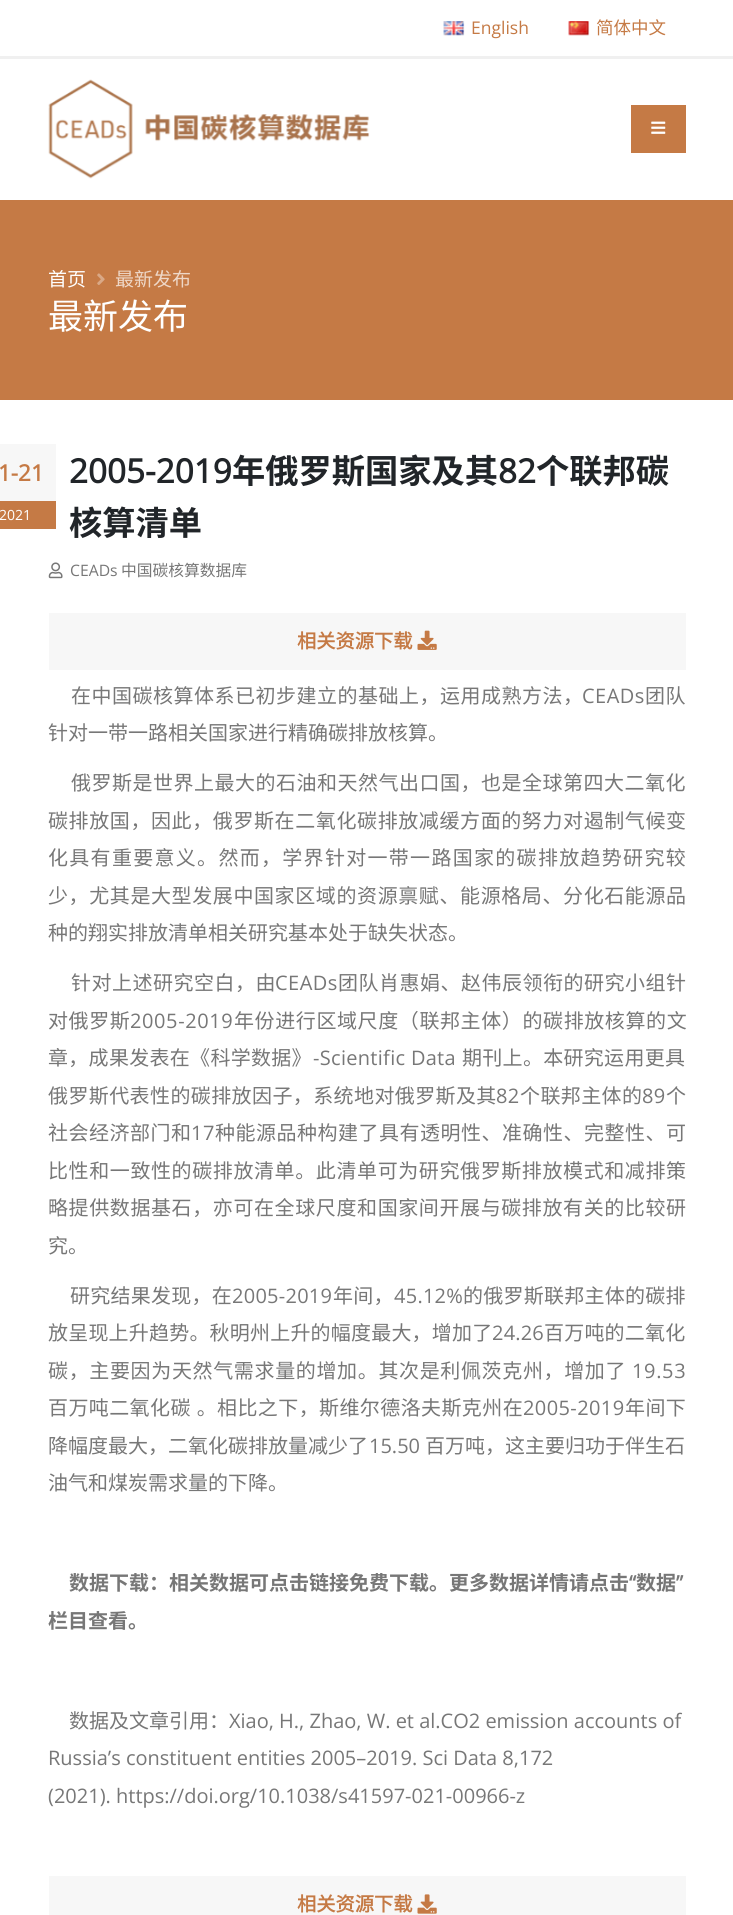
#include <cairo/cairo.h>
#include <math.h>
#include <stddef.h>


static void draw_spaced(cairo_t *cr, double x, double y, const char *s, double letter, double word) {
  cairo_move_to(cr, x, y);
  while (*s) {
    char ch[5] = {0};
    int n = 0;
    do ch[n++] = *s++; while ((*s & 0xC0) == 0x80);
    cairo_show_text(cr, ch);
    cairo_rel_move_to(cr, letter + word * (*ch == ' '), 0);
  }
}

static void draw_image(cairo_t *cr, const char *path, double x, double y, double w, double h) {
  cairo_surface_t *image = cairo_image_surface_create_from_png(path);
  cairo_save(cr);
  cairo_set_source_surface(cr, image, x, y);
  cairo_rectangle(cr, x, y, w, h);
  cairo_fill(cr);
  cairo_restore(cr);
  cairo_surface_destroy(image);
}

static void draw(cairo_t *cr) {
  cairo_set_source_rgb(cr, 1, 1, 1);
  cairo_paint(cr);
  cairo_set_source_rgb(cr, 240 / 255.0, 240 / 255.0, 240 / 255.0);
  cairo_rectangle(cr, 0, 56, 733, 3);
  cairo_fill(cr);
  draw_image(cr, "images/1.png", 443, 21, 22, 15);
  draw_image(cr, "images/2.png", 568, 21, 22, 15);
  draw_image(cr, "images/3.png", 48, 79, 322, 100);
  cairo_set_source_rgb(cr, 197 / 255.0, 122 / 255.0, 69 / 255.0);
  cairo_rectangle(cr, 631, 105, 55, 48);
  cairo_fill(cr);
  draw_image(cr, "images/4.png", 651, 121, 15, 13);
  cairo_rectangle(cr, 0, 200, 733, 200);
  cairo_fill(cr);
  draw_image(cr, "images/5.png", 97, 273, 8, 12);
  cairo_set_source_rgb(cr, 247 / 255.0, 247 / 255.0, 247 / 255.0);
  cairo_rectangle(cr, 0, 444, 56, 57);
  cairo_fill(cr);
  cairo_set_source_rgb(cr, 197 / 255.0, 122 / 255.0, 69 / 255.0);
  cairo_rectangle(cr, 0, 501, 56, 28);
  cairo_fill(cr);
  draw_image(cr, "images/6.png", 48, 562, 15, 17);
  cairo_set_source_rgb(cr, 247 / 255.0, 247 / 255.0, 247 / 255.0);
  cairo_rectangle(cr, 49, 613, 637, 57);
  cairo_fill(cr);
  draw_image(cr, "images/7.png", 417, 630, 20, 20);
  cairo_rectangle(cr, 49, 1876, 637, 39);
  cairo_fill(cr);
  draw_image(cr, "images/8.png", 417, 1894, 20, 20);
  cairo_select_font_face(cr, "Open Sans", CAIRO_FONT_SLANT_NORMAL, CAIRO_FONT_WEIGHT_NORMAL);
  cairo_set_font_size(cr, 17.5);
  cairo_set_source_rgb(cr, 197 / 255.0, 122 / 255.0, 69 / 255.0);
  cairo_move_to(cr, 471, 34);
  cairo_show_text(cr, "English");
  cairo_select_font_face(cr, "Noto Sans CJK SC", CAIRO_FONT_SLANT_NORMAL, CAIRO_FONT_WEIGHT_NORMAL);
  cairo_move_to(cr, 596, 34);
  cairo_show_text(cr, "简体中文");
  cairo_set_font_size(cr, 19);
  cairo_set_source_rgb(cr, 1, 1, 1);
  cairo_move_to(cr, 48, 286);
  cairo_show_text(cr, "首页");
  cairo_set_source_rgb(cr, 238 / 255.0, 215 / 255.0, 199 / 255.0);
  cairo_move_to(cr, 115, 286);
  cairo_show_text(cr, "最新发布");
  cairo_set_font_size(cr, 35);
  cairo_set_source_rgb(cr, 1, 1, 1);
  cairo_move_to(cr, 48, 329);
  cairo_show_text(cr, "最新发布");
  cairo_select_font_face(cr, "Open Sans", CAIRO_FONT_SLANT_NORMAL, CAIRO_FONT_WEIGHT_BOLD);
  cairo_set_font_size(cr, 22.5);
  cairo_set_source_rgb(cr, 197 / 255.0, 122 / 255.0, 69 / 255.0);
  cairo_move_to(cr, -2, 481);
  cairo_show_text(cr, "1-21");
  cairo_select_font_face(cr, "Open Sans", CAIRO_FONT_SLANT_NORMAL, CAIRO_FONT_WEIGHT_NORMAL);
  cairo_set_font_size(cr, 14);
  cairo_set_source_rgb(cr, 1, 1, 1);
  cairo_move_to(cr, -1, 520);
  cairo_show_text(cr, "2021");
  cairo_select_font_face(cr, "Open Sans", CAIRO_FONT_SLANT_NORMAL, CAIRO_FONT_WEIGHT_BOLD);
  cairo_set_font_size(cr, 33.25);
  cairo_set_source_rgb(cr, 33 / 255.0, 37 / 255.0, 41 / 255.0);
  cairo_move_to(cr, 69, 483);
  cairo_show_text(cr, "2005-2019");
  cairo_select_font_face(cr, "Noto Sans CJK SC", CAIRO_FONT_SLANT_NORMAL, CAIRO_FONT_WEIGHT_BOLD);
  cairo_move_to(cr, 232, 483);
  cairo_show_text(cr, "年俄罗斯国家及其");
  cairo_select_font_face(cr, "Open Sans", CAIRO_FONT_SLANT_NORMAL, CAIRO_FONT_WEIGHT_BOLD);
  cairo_move_to(cr, 498, 483);
  cairo_show_text(cr, "82");
  cairo_select_font_face(cr, "Noto Sans CJK SC", CAIRO_FONT_SLANT_NORMAL, CAIRO_FONT_WEIGHT_BOLD);
  cairo_move_to(cr, 536, 483);
  cairo_show_text(cr, "个联邦碳");
  cairo_move_to(cr, 69, 535);
  cairo_show_text(cr, "核算清单");
  cairo_select_font_face(cr, "Open Sans", CAIRO_FONT_SLANT_NORMAL, CAIRO_FONT_WEIGHT_NORMAL);
  cairo_set_font_size(cr, 15.75);
  cairo_set_source_rgb(cr, 119 / 255.0, 119 / 255.0, 119 / 255.0);
  cairo_move_to(cr, 70, 576);
  cairo_show_text(cr, "CEADs");
  cairo_select_font_face(cr, "Noto Sans CJK SC", CAIRO_FONT_SLANT_NORMAL, CAIRO_FONT_WEIGHT_NORMAL);
  cairo_move_to(cr, 121, 576);
  cairo_show_text(cr, "中国碳核算数据库");
  cairo_select_font_face(cr, "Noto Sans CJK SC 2", CAIRO_FONT_SLANT_NORMAL, CAIRO_FONT_WEIGHT_BOLD);
  cairo_set_font_size(cr, 19.25);
  cairo_set_source_rgb(cr, 197 / 255.0, 122 / 255.0, 69 / 255.0);
  cairo_move_to(cr, 297, 648);
  cairo_show_text(cr, "相关资源下载");
  cairo_select_font_face(cr, "Noto Sans CJK SC", CAIRO_FONT_SLANT_NORMAL, CAIRO_FONT_WEIGHT_NORMAL);
  cairo_set_font_size(cr, 20);
  cairo_set_source_rgb(cr, 119 / 255.0, 119 / 255.0, 119 / 255.0);
  draw_spaced(cr, 71, 703, "在中国碳核算体系已初步建立的基础上，运用成熟方法，", 0.5, 0);
  cairo_select_font_face(cr, "Open Sans", CAIRO_FONT_SLANT_NORMAL, CAIRO_FONT_WEIGHT_NORMAL);
  draw_spaced(cr, 582, 703, "CEADs", 0.5, 0);
  cairo_select_font_face(cr, "Noto Sans CJK SC", CAIRO_FONT_SLANT_NORMAL, CAIRO_FONT_WEIGHT_NORMAL);
  draw_spaced(cr, 645, 703, "团队", 0.5, 0);
  cairo_move_to(cr, 48, 740);
  cairo_show_text(cr, "针对一带一路相关国家进行精确碳排放核算。");
  draw_spaced(cr, 71, 790, "俄罗斯是世界上最大的石油和天然气出口国，也是全球第四大二氧化", 0.5, 0);
  draw_spaced(cr, 48, 828, "碳排放国，因此，俄罗斯在二氧化碳排放减缓方面的努力对遏制气候变", 0.6, 0);
  draw_spaced(cr, 48, 865, "化具有重要意义。然而，学界针对一带一路国家的碳排放趋势研究较", 1.3, 0);
  draw_spaced(cr, 48, 903, "少，尤其是大型发展中国家区域的资源禀赋、能源格局、分化石能源品", 0.6, 0);
  cairo_move_to(cr, 48, 940);
  cairo_show_text(cr, "种的翔实排放清单相关研究基本处于缺失状态。");
  draw_spaced(cr, 71, 990, "针对上述研究空白，由", 0.5, 0);
  cairo_select_font_face(cr, "Open Sans", CAIRO_FONT_SLANT_NORMAL, CAIRO_FONT_WEIGHT_NORMAL);
  draw_spaced(cr, 275, 990, "CEADs", 0.5, 0);
  cairo_select_font_face(cr, "Noto Sans CJK SC", CAIRO_FONT_SLANT_NORMAL, CAIRO_FONT_WEIGHT_NORMAL);
  draw_spaced(cr, 338, 990, "团队肖惠娟、赵伟辰领衔的研究小组针", 0.5, 0);
  draw_spaced(cr, 48, 1028, "对俄罗斯", 0.6, 0);
  cairo_select_font_face(cr, "Open Sans", CAIRO_FONT_SLANT_NORMAL, CAIRO_FONT_WEIGHT_NORMAL);
  draw_spaced(cr, 130, 1028, "2005-2019", 0.6, 0);
  cairo_select_font_face(cr, "Noto Sans CJK SC", CAIRO_FONT_SLANT_NORMAL, CAIRO_FONT_WEIGHT_NORMAL);
  draw_spaced(cr, 234, 1028, "年份进行区域尺度（联邦主体）的碳排放核算的文", 0.6, 0);
  draw_spaced(cr, 48, 1065, "章，成果发表在《科学数据》", 0.3, 0);
  cairo_select_font_face(cr, "Open Sans", CAIRO_FONT_SLANT_NORMAL, CAIRO_FONT_WEIGHT_NORMAL);
  draw_spaced(cr, 313, 1065, "-Scientific Data", 0.3, 0);
  cairo_select_font_face(cr, "Noto Sans CJK SC", CAIRO_FONT_SLANT_NORMAL, CAIRO_FONT_WEIGHT_NORMAL);
  draw_spaced(cr, 462, 1065, "期刊上。本研究运用更具", 0.3, 0);
  draw_spaced(cr, 48, 1103, "俄罗斯代表性的碳排放因子，系统地对俄罗斯及其", 0.4, 0);
  cairo_select_font_face(cr, "Open Sans", CAIRO_FONT_SLANT_NORMAL, CAIRO_FONT_WEIGHT_NORMAL);
  draw_spaced(cr, 496, 1103, "82", 0.4, 0);
  cairo_select_font_face(cr, "Noto Sans CJK SC", CAIRO_FONT_SLANT_NORMAL, CAIRO_FONT_WEIGHT_NORMAL);
  draw_spaced(cr, 520, 1103, "个联邦主体的", 0.4, 0);
  cairo_select_font_face(cr, "Open Sans", CAIRO_FONT_SLANT_NORMAL, CAIRO_FONT_WEIGHT_NORMAL);
  draw_spaced(cr, 642, 1103, "89", 0.4, 0);
  cairo_select_font_face(cr, "Noto Sans CJK SC", CAIRO_FONT_SLANT_NORMAL, CAIRO_FONT_WEIGHT_NORMAL);
  draw_spaced(cr, 666, 1103, "个", 0.4, 0);
  draw_spaced(cr, 48, 1140, "社会经济部门和", 0.5, 0);
  cairo_select_font_face(cr, "Open Sans", CAIRO_FONT_SLANT_NORMAL, CAIRO_FONT_WEIGHT_NORMAL);
  draw_spaced(cr, 191, 1140, "17", 0.5, 0);
  cairo_select_font_face(cr, "Noto Sans CJK SC", CAIRO_FONT_SLANT_NORMAL, CAIRO_FONT_WEIGHT_NORMAL);
  draw_spaced(cr, 215, 1140, "种能源品种构建了具有透明性、准确性、完整性、可", 0.5, 0);
  draw_spaced(cr, 48, 1178, "比性和一致性的碳排放清单。此清单可为研究俄罗斯排放模式和减排策", 0.6, 0);
  draw_spaced(cr, 48, 1215, "略提供数据基石，亦可在全球尺度和国家间开展与碳排放有关的比较研", 0.6, 0);
  cairo_move_to(cr, 48, 1253);
  cairo_show_text(cr, "究。");
  draw_spaced(cr, 70, 1303, "研究结果发现，在", 0.25, 0);
  cairo_select_font_face(cr, "Open Sans", CAIRO_FONT_SLANT_NORMAL, CAIRO_FONT_WEIGHT_NORMAL);
  draw_spaced(cr, 232, 1303, "2005-2019", 0.25, 0);
  cairo_select_font_face(cr, "Noto Sans CJK SC", CAIRO_FONT_SLANT_NORMAL, CAIRO_FONT_WEIGHT_NORMAL);
  draw_spaced(cr, 333, 1303, "年间，", 0.25, 0);
  cairo_select_font_face(cr, "Open Sans", CAIRO_FONT_SLANT_NORMAL, CAIRO_FONT_WEIGHT_NORMAL);
  draw_spaced(cr, 394, 1303, "45.12%", 0.25, 0);
  cairo_select_font_face(cr, "Noto Sans CJK SC", CAIRO_FONT_SLANT_NORMAL, CAIRO_FONT_WEIGHT_NORMAL);
  draw_spaced(cr, 463, 1303, "的俄罗斯联邦主体的碳排", 0.25, 0);
  draw_spaced(cr, 48, 1340, "放呈现上升趋势。秋明州上升的幅度最大，增加了", 0.2, 0);
  cairo_select_font_face(cr, "Open Sans", CAIRO_FONT_SLANT_NORMAL, CAIRO_FONT_WEIGHT_NORMAL);
  draw_spaced(cr, 492, 1340, "24.26", 0.2, 0);
  cairo_select_font_face(cr, "Noto Sans CJK SC", CAIRO_FONT_SLANT_NORMAL, CAIRO_FONT_WEIGHT_NORMAL);
  draw_spaced(cr, 544, 1340, "百万吨的二氧化", 0.2, 0);
  draw_spaced(cr, 48, 1378, "碳，主要因为天然气需求量的增加。其次是利佩茨克州，增加了", 0.65, 0);
  cairo_select_font_face(cr, "Open Sans", CAIRO_FONT_SLANT_NORMAL, CAIRO_FONT_WEIGHT_NORMAL);
  draw_spaced(cr, 632, 1378, "19.53", 0.65, 0);
  cairo_select_font_face(cr, "Noto Sans CJK SC", CAIRO_FONT_SLANT_NORMAL, CAIRO_FONT_WEIGHT_NORMAL);
  draw_spaced(cr, 48, 1415, "百万吨二氧化碳 。相比之下，斯维尔德洛夫斯克州在", 0.4, 1);
  cairo_select_font_face(cr, "Open Sans", CAIRO_FONT_SLANT_NORMAL, CAIRO_FONT_WEIGHT_NORMAL);
  draw_spaced(cr, 523, 1415, "2005-2019", 0.4, 0);
  cairo_select_font_face(cr, "Noto Sans CJK SC", CAIRO_FONT_SLANT_NORMAL, CAIRO_FONT_WEIGHT_NORMAL);
  draw_spaced(cr, 625, 1415, "年间下", 0.4, 0);
  cairo_move_to(cr, 48, 1453);
  cairo_show_text(cr, "降幅度最大，二氧化碳排放量减少了");
  cairo_select_font_face(cr, "Open Sans", CAIRO_FONT_SLANT_NORMAL, CAIRO_FONT_WEIGHT_NORMAL);
  cairo_move_to(cr, 369, 1453);
  cairo_show_text(cr, "15.50");
  cairo_select_font_face(cr, "Noto Sans CJK SC", CAIRO_FONT_SLANT_NORMAL, CAIRO_FONT_WEIGHT_NORMAL);
  cairo_move_to(cr, 425, 1453);
  cairo_show_text(cr, "百万吨，这主要归功于伴生石");
  cairo_move_to(cr, 48, 1490);
  cairo_show_text(cr, "油气和煤炭需求量的下降。");
  cairo_select_font_face(cr, "Noto Sans CJK SC", CAIRO_FONT_SLANT_NORMAL, CAIRO_FONT_WEIGHT_BOLD);
  cairo_move_to(cr, 69, 1590);
  cairo_show_text(cr, "数据下载：相关数据可点击链接免费下载。更多数据详情请点击");
  cairo_select_font_face(cr, "Open Sans", CAIRO_FONT_SLANT_NORMAL, CAIRO_FONT_WEIGHT_BOLD);
  cairo_move_to(cr, 629, 1590);
  cairo_show_text(cr, "“");
  cairo_select_font_face(cr, "Noto Sans CJK SC", CAIRO_FONT_SLANT_NORMAL, CAIRO_FONT_WEIGHT_BOLD);
  cairo_move_to(cr, 636, 1590);
  cairo_show_text(cr, "数据");
  cairo_select_font_face(cr, "Open Sans", CAIRO_FONT_SLANT_NORMAL, CAIRO_FONT_WEIGHT_BOLD);
  cairo_move_to(cr, 676, 1590);
  cairo_show_text(cr, "”");
  cairo_select_font_face(cr, "Noto Sans CJK SC", CAIRO_FONT_SLANT_NORMAL, CAIRO_FONT_WEIGHT_BOLD);
  cairo_move_to(cr, 48, 1628);
  cairo_show_text(cr, "栏目查看。");
  cairo_select_font_face(cr, "Noto Sans CJK SC", CAIRO_FONT_SLANT_NORMAL, CAIRO_FONT_WEIGHT_NORMAL);
  cairo_move_to(cr, 69, 1728);
  cairo_show_text(cr, "数据及文章引用：");
  cairo_select_font_face(cr, "Open Sans", CAIRO_FONT_SLANT_NORMAL, CAIRO_FONT_WEIGHT_NORMAL);
  cairo_move_to(cr, 229, 1728);
  cairo_show_text(cr, "Xiao, H., Zhao, W. et al.CO2 emission accounts of");
  cairo_move_to(cr, 48, 1765);
  cairo_show_text(cr, "Russia’s constituent entities 2005–2019. Sci Data 8,172");
  cairo_move_to(cr, 48, 1803);
  cairo_show_text(cr, "(2021). https://doi.org/10.1038/s41597-021-00966-z");
  cairo_select_font_face(cr, "Noto Sans CJK SC 2", CAIRO_FONT_SLANT_NORMAL, CAIRO_FONT_WEIGHT_BOLD);
  cairo_set_font_size(cr, 19.25);
  cairo_set_source_rgb(cr, 197 / 255.0, 122 / 255.0, 69 / 255.0);
  cairo_move_to(cr, 297, 1911);
  cairo_show_text(cr, "相关资源下载");
}

int main(void) {
  cairo_surface_t *surface = cairo_image_surface_create(CAIRO_FORMAT_RGB24, 733, 1915);
  cairo_t *cr = cairo_create(surface);
  cairo_font_options_t *options = cairo_font_options_create();
  cairo_font_options_set_hint_metrics(options, CAIRO_HINT_METRICS_OFF);
  cairo_font_options_set_hint_style(options, CAIRO_HINT_STYLE_NONE);
  cairo_set_font_options(cr, options);
  cairo_set_miter_limit(cr, 4);
  draw(cr);
  cairo_surface_write_to_png(surface, "out.png");
  cairo_font_options_destroy(options);
  cairo_destroy(cr);
  cairo_surface_destroy(surface);
  return 0;
}
